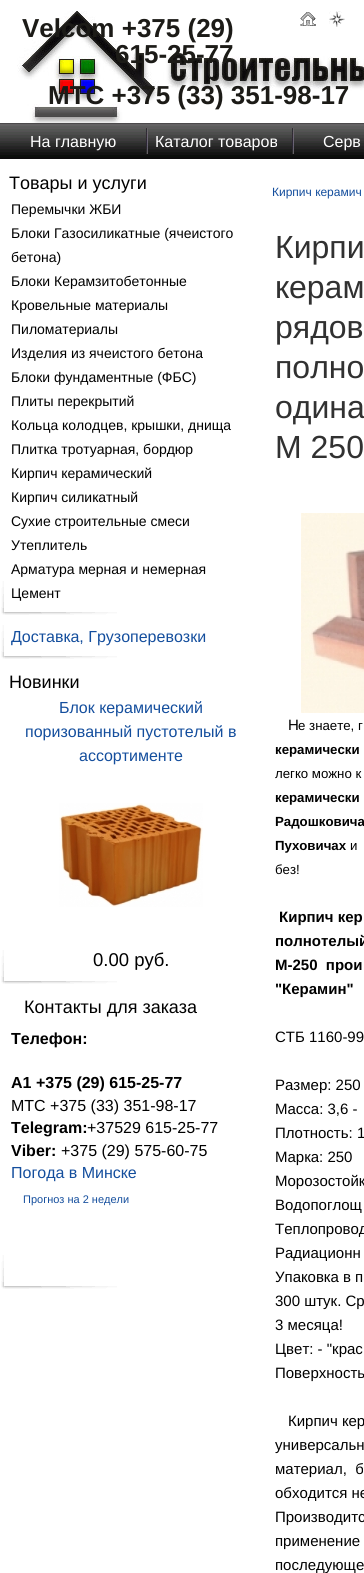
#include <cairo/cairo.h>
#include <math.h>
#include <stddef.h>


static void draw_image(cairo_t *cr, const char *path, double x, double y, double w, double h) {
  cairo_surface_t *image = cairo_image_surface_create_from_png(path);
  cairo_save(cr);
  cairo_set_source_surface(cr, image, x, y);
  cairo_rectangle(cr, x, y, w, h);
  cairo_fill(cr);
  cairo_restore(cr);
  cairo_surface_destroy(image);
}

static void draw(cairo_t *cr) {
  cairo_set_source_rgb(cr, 1, 1, 1);
  cairo_paint(cr);
  draw_image(cr, "images/1.png", 17, 11, 347, 112);
  draw_image(cr, "images/2.png", 300, 12, 16, 14);
  draw_image(cr, "images/3.png", 329, 11, 16, 16);
  draw_image(cr, "images/4.png", 0, 123, 364, 36);
  draw_image(cr, "images/5.png", 146, 128, 2, 26);
  draw_image(cr, "images/5.png", 292, 128, 2, 26);
  draw_image(cr, "images/6.png", 1, 581, 116, 34);
  draw_image(cr, "images/6.png", 1, 625, 116, 34);
  draw_image(cr, "images/6.png", 1, 950, 116, 34);
  draw_image(cr, "images/7.png", 59, 803, 144, 104);
  draw_image(cr, "images/6.png", 1, 1255, 116, 34);
  draw_image(cr, "images/8.png", 301, 513, 63, 200);
  cairo_select_font_face(cr, "Liberation Sans", CAIRO_FONT_SLANT_NORMAL, CAIRO_FONT_WEIGHT_BOLD);
  cairo_set_font_size(cr, 26);
  cairo_set_source_rgb(cr, 28 / 255.0, 27 / 255.0, 23 / 255.0);
  cairo_move_to(cr, 22, 37);
  cairo_show_text(cr, "Velcom +375 (29)");
  cairo_move_to(cr, 115, 63);
  cairo_show_text(cr, "615-25-77");
  cairo_move_to(cr, 48, 104);
  cairo_show_text(cr, "MTC +375 (33) 351-98-17");
  cairo_select_font_face(cr, "Liberation Sans", CAIRO_FONT_SLANT_NORMAL, CAIRO_FONT_WEIGHT_NORMAL);
  cairo_set_font_size(cr, 16);
  cairo_set_source_rgb(cr, 1, 1, 1);
  cairo_move_to(cr, 30, 147);
  cairo_show_text(cr, "На главную");
  cairo_move_to(cr, 155, 147);
  cairo_show_text(cr, "Каталог товаров");
  cairo_move_to(cr, 323, 147);
  cairo_show_text(cr, "Серв");
  cairo_set_font_size(cr, 18);
  cairo_set_source_rgb(cr, 0, 0, 0);
  cairo_move_to(cr, 9, 189);
  cairo_show_text(cr, "Товары и услуги");
  cairo_set_font_size(cr, 14);
  cairo_move_to(cr, 11, 214);
  cairo_show_text(cr, "Перемычки ЖБИ");
  cairo_move_to(cr, 11, 238);
  cairo_show_text(cr, "Блоки Газоcиликатные (ячеистого");
  cairo_move_to(cr, 11, 262);
  cairo_show_text(cr, "бетона)");
  cairo_move_to(cr, 11, 286);
  cairo_show_text(cr, "Блоки Керамзитобетонные");
  cairo_move_to(cr, 11, 310);
  cairo_show_text(cr, "Кровельные материалы");
  cairo_move_to(cr, 11, 334);
  cairo_show_text(cr, "Пиломатериалы");
  cairo_move_to(cr, 11, 358);
  cairo_show_text(cr, "Изделия из ячеистого бетона");
  cairo_move_to(cr, 11, 382);
  cairo_show_text(cr, "Блоки фундаментные (ФБС)");
  cairo_move_to(cr, 11, 406);
  cairo_show_text(cr, "Плиты перекрытий");
  cairo_move_to(cr, 11, 430);
  cairo_show_text(cr, "Кольца колодцев, крышки, днища");
  cairo_move_to(cr, 11, 454);
  cairo_show_text(cr, "Плитка тротуарная, бордюр");
  cairo_move_to(cr, 11, 478);
  cairo_show_text(cr, "Кирпич керамический");
  cairo_move_to(cr, 11, 502);
  cairo_show_text(cr, "Кирпич силикатный");
  cairo_move_to(cr, 11, 526);
  cairo_show_text(cr, "Сухие строительные смеси");
  cairo_move_to(cr, 11, 550);
  cairo_show_text(cr, "Утеплитель");
  cairo_move_to(cr, 11, 574);
  cairo_show_text(cr, "Арматура мерная и немерная");
  cairo_move_to(cr, 11, 598);
  cairo_show_text(cr, "Цемент");
  cairo_set_font_size(cr, 16);
  cairo_set_source_rgb(cr, 20 / 255.0, 78 / 255.0, 157 / 255.0);
  cairo_move_to(cr, 11, 642);
  cairo_show_text(cr, "Доставка, Грузоперевозки");
  cairo_set_font_size(cr, 18);
  cairo_set_source_rgb(cr, 0, 0, 0);
  cairo_move_to(cr, 9, 688);
  cairo_show_text(cr, "Новинки");
  cairo_set_font_size(cr, 16);
  cairo_set_source_rgb(cr, 20 / 255.0, 78 / 255.0, 157 / 255.0);
  cairo_move_to(cr, 59, 713);
  cairo_show_text(cr, "Блок керамический");
  cairo_move_to(cr, 25, 737);
  cairo_show_text(cr, "поризованный пустотелый в");
  cairo_move_to(cr, 79, 761);
  cairo_show_text(cr, "ассортименте");
  cairo_set_font_size(cr, 18.5);
  cairo_set_source_rgb(cr, 0, 0, 0);
  cairo_move_to(cr, 93, 966);
  cairo_show_text(cr, "0.00 руб.");
  cairo_set_font_size(cr, 18);
  cairo_move_to(cr, 24, 1013);
  cairo_show_text(cr, "Контакты для заказа");
  cairo_select_font_face(cr, "Liberation Sans", CAIRO_FONT_SLANT_NORMAL, CAIRO_FONT_WEIGHT_BOLD);
  cairo_set_font_size(cr, 16);
  cairo_move_to(cr, 11, 1044);
  cairo_show_text(cr, "Телефон:");
  cairo_move_to(cr, 11, 1088);
  cairo_show_text(cr, "A1 +375 (29) 615-25-77");
  cairo_select_font_face(cr, "Liberation Sans", CAIRO_FONT_SLANT_NORMAL, CAIRO_FONT_WEIGHT_NORMAL);
  cairo_move_to(cr, 11, 1111);
  cairo_show_text(cr, "MTC +375 (33) 351-98-17");
  cairo_select_font_face(cr, "Liberation Sans", CAIRO_FONT_SLANT_NORMAL, CAIRO_FONT_WEIGHT_BOLD);
  cairo_move_to(cr, 11, 1133);
  cairo_show_text(cr, "Telegram:");
  cairo_select_font_face(cr, "Liberation Sans", CAIRO_FONT_SLANT_NORMAL, CAIRO_FONT_WEIGHT_NORMAL);
  cairo_move_to(cr, 87, 1133);
  cairo_show_text(cr, "+37529 615-25-77");
  cairo_select_font_face(cr, "Liberation Sans", CAIRO_FONT_SLANT_NORMAL, CAIRO_FONT_WEIGHT_BOLD);
  cairo_move_to(cr, 11, 1156);
  cairo_show_text(cr, "Viber:");
  cairo_select_font_face(cr, "Liberation Sans", CAIRO_FONT_SLANT_NORMAL, CAIRO_FONT_WEIGHT_NORMAL);
  cairo_move_to(cr, 61, 1156);
  cairo_show_text(cr, "+375 (29) 575-60-75");
  cairo_set_source_rgb(cr, 20 / 255.0, 78 / 255.0, 157 / 255.0);
  cairo_move_to(cr, 11, 1178);
  cairo_show_text(cr, "Погода в Минске");
  cairo_set_font_size(cr, 11);
  cairo_move_to(cr, 23, 1203);
  cairo_show_text(cr, "Прогноз на 2 недели");
  cairo_set_font_size(cr, 12);
  cairo_move_to(cr, 272, 196);
  cairo_show_text(cr, "Кирпич керамич");
  cairo_set_font_size(cr, 32);
  cairo_set_source_rgb(cr, 49 / 255.0, 49 / 255.0, 49 / 255.0);
  cairo_move_to(cr, 275, 258);
  cairo_show_text(cr, "Кирпи");
  cairo_move_to(cr, 275, 298);
  cairo_show_text(cr, "керам");
  cairo_move_to(cr, 275, 338);
  cairo_show_text(cr, "рядов");
  cairo_move_to(cr, 275, 378);
  cairo_show_text(cr, "полно");
  cairo_move_to(cr, 275, 418);
  cairo_show_text(cr, "одина");
  cairo_move_to(cr, 275, 458);
  cairo_show_text(cr, "М 250");
  cairo_set_font_size(cr, 15);
  cairo_set_source_rgb(cr, 0, 0, 0);
  cairo_move_to(cr, 288, 730);
  cairo_show_text(cr, "Н");
  cairo_set_font_size(cr, 13.25);
  cairo_move_to(cr, 298, 730);
  cairo_show_text(cr, "е знаете, г");
  cairo_select_font_face(cr, "Liberation Sans", CAIRO_FONT_SLANT_NORMAL, CAIRO_FONT_WEIGHT_BOLD);
  cairo_move_to(cr, 275, 754);
  cairo_show_text(cr, "керамически");
  cairo_select_font_face(cr, "Liberation Sans", CAIRO_FONT_SLANT_NORMAL, CAIRO_FONT_WEIGHT_NORMAL);
  cairo_move_to(cr, 275, 778);
  cairo_show_text(cr, "легко можно к");
  cairo_select_font_face(cr, "Liberation Sans", CAIRO_FONT_SLANT_NORMAL, CAIRO_FONT_WEIGHT_BOLD);
  cairo_move_to(cr, 275, 802);
  cairo_show_text(cr, "керамически");
  cairo_move_to(cr, 275, 826);
  cairo_show_text(cr, "Радошковича");
  cairo_move_to(cr, 275, 850);
  cairo_show_text(cr, "Пуховичах");
  cairo_select_font_face(cr, "Liberation Sans", CAIRO_FONT_SLANT_NORMAL, CAIRO_FONT_WEIGHT_NORMAL);
  cairo_move_to(cr, 350, 850);
  cairo_show_text(cr, "и");
  cairo_move_to(cr, 275, 874);
  cairo_show_text(cr, "без!");
  cairo_select_font_face(cr, "Liberation Sans", CAIRO_FONT_SLANT_NORMAL, CAIRO_FONT_WEIGHT_BOLD);
  cairo_set_font_size(cr, 15);
  cairo_move_to(cr, 279, 922);
  cairo_show_text(cr, "Кирпич кер");
  cairo_move_to(cr, 275, 946);
  cairo_show_text(cr, "полнотелый");
  cairo_move_to(cr, 275, 970);
  cairo_show_text(cr, "М-250  прои");
  cairo_move_to(cr, 275, 994);
  cairo_show_text(cr, "\"Керамин\"");
  cairo_select_font_face(cr, "Liberation Sans", CAIRO_FONT_SLANT_NORMAL, CAIRO_FONT_WEIGHT_NORMAL);
  cairo_move_to(cr, 275, 1042);
  cairo_show_text(cr, "СТБ 1160-99");
  cairo_move_to(cr, 275, 1090);
  cairo_show_text(cr, "Размер: 250");
  cairo_move_to(cr, 275, 1114);
  cairo_show_text(cr, "Масса: 3,6 -");
  cairo_move_to(cr, 275, 1138);
  cairo_show_text(cr, "Плотность: 1");
  cairo_move_to(cr, 275, 1162);
  cairo_show_text(cr, "Марка: 250");
  cairo_move_to(cr, 275, 1186);
  cairo_show_text(cr, "Морозостойк");
  cairo_move_to(cr, 275, 1210);
  cairo_show_text(cr, "Водопоглощ");
  cairo_move_to(cr, 275, 1234);
  cairo_show_text(cr, "Теплопровод");
  cairo_move_to(cr, 275, 1258);
  cairo_show_text(cr, "Радиационн");
  cairo_move_to(cr, 275, 1282);
  cairo_show_text(cr, "Упаковка в п");
  cairo_move_to(cr, 275, 1306);
  cairo_show_text(cr, "300 штук. Ср");
  cairo_move_to(cr, 275, 1330);
  cairo_show_text(cr, "3 месяца!");
  cairo_move_to(cr, 275, 1354);
  cairo_show_text(cr, "Цвет: - \"крас");
  cairo_move_to(cr, 275, 1378);
  cairo_show_text(cr, "Поверхность");
  cairo_move_to(cr, 288, 1426);
  cairo_show_text(cr, "Кирпич кер");
  cairo_move_to(cr, 275, 1450);
  cairo_show_text(cr, "универсальн");
  cairo_move_to(cr, 275, 1474);
  cairo_show_text(cr, "материал,  б");
  cairo_move_to(cr, 275, 1498);
  cairo_show_text(cr, "обходится не");
  cairo_move_to(cr, 275, 1522);
  cairo_show_text(cr, "Производитс");
  cairo_move_to(cr, 275, 1546);
  cairo_show_text(cr, "применение");
  cairo_move_to(cr, 275, 1570);
  cairo_show_text(cr, "последующе");
}

int main(void) {
  cairo_surface_t *surface = cairo_image_surface_create(CAIRO_FORMAT_RGB24, 364, 1573);
  cairo_t *cr = cairo_create(surface);
  cairo_font_options_t *options = cairo_font_options_create();
  cairo_font_options_set_hint_metrics(options, CAIRO_HINT_METRICS_OFF);
  cairo_font_options_set_hint_style(options, CAIRO_HINT_STYLE_NONE);
  cairo_set_font_options(cr, options);
  cairo_set_miter_limit(cr, 4);
  draw(cr);
  cairo_surface_write_to_png(surface, "out.png");
  cairo_font_options_destroy(options);
  cairo_destroy(cr);
  cairo_surface_destroy(surface);
  return 0;
}
